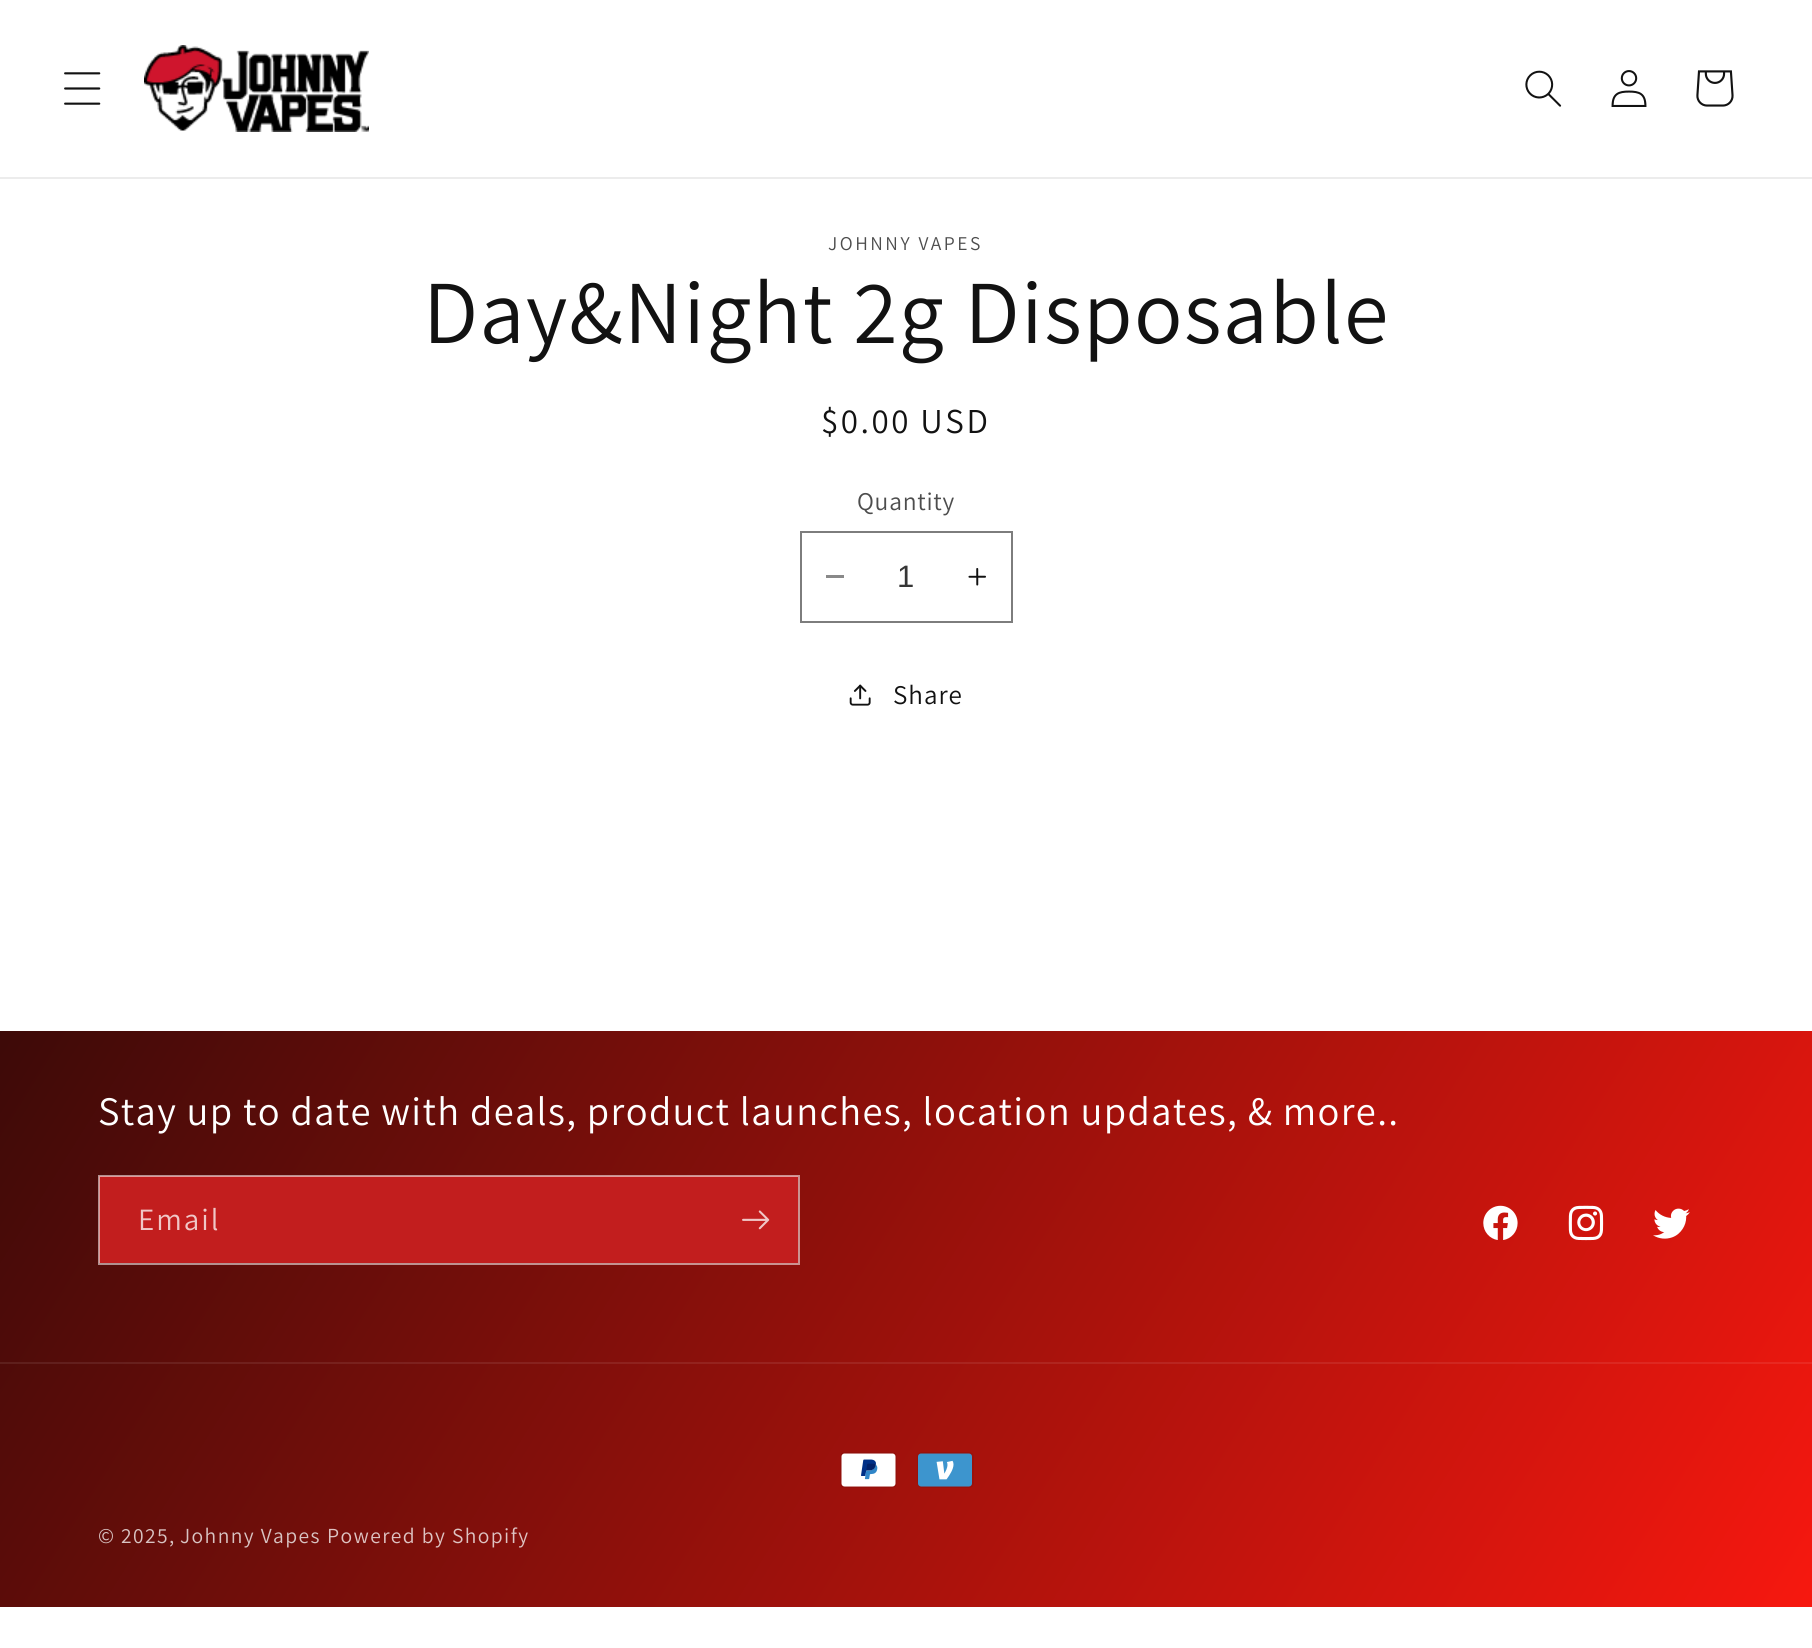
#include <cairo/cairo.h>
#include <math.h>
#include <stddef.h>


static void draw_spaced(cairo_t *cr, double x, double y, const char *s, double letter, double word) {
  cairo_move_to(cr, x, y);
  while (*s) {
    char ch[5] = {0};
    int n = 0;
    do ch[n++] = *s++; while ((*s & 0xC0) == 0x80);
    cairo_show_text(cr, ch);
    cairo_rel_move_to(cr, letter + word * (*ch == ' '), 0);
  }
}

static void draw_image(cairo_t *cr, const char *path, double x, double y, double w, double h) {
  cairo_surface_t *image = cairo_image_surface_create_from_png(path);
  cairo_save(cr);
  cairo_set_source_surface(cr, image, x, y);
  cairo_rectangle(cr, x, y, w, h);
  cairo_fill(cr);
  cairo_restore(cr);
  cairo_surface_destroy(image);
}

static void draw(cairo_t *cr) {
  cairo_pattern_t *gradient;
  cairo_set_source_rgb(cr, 1, 1, 1);
  cairo_paint(cr);
  cairo_set_source_rgb(cr, 236 / 255.0, 236 / 255.0, 236 / 255.0);
  cairo_rectangle(cr, 0, 177, 1812, 2);
  cairo_fill(cr);
  draw_image(cr, "images/1.png", 64, 72, 37, 33);
  draw_image(cr, "images/2.png", 144, 45, 225, 87);
  draw_image(cr, "images/3.png", 1525, 70, 37, 37);
  draw_image(cr, "images/4.png", 1611, 70, 36, 37);
  draw_image(cr, "images/5.png", 1696, 70, 38, 37);
  cairo_set_source_rgb(cr, 137 / 255.0, 137 / 255.0, 137 / 255.0);
  cairo_rectangle(cr, 826, 575, 18, 3);
  cairo_fill(cr);
  draw_image(cr, "images/6.png", 968, 568, 18, 18);
  cairo_rectangle(cr, 801, 532, 211, 90);
  cairo_set_source_rgb(cr, 125 / 255.0, 125 / 255.0, 125 / 255.0);
  cairo_stroke(cr);
  draw_image(cr, "images/7.png", 849, 684, 22, 22);
  gradient = cairo_pattern_create_linear(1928, 1463, -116, 186);
  cairo_pattern_add_color_stop_rgba(gradient, 0, 249 / 255.0, 24 / 255.0, 15 / 255.0, 1);
  cairo_pattern_add_color_stop_rgba(gradient, 1, 6 / 255.0, 6 / 255.0, 6 / 255.0, 1);
  cairo_set_source(cr, gradient);
  cairo_pattern_destroy(gradient);
  cairo_rectangle(cr, 0, 1031, 1812, 576);
  cairo_fill(cr);
  gradient = cairo_pattern_create_linear(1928, 1463, -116, 186);
  cairo_pattern_add_color_stop_rgba(gradient, 0, 249 / 255.0, 42 / 255.0, 34 / 255.0, 1);
  cairo_pattern_add_color_stop_rgba(gradient, 1, 26 / 255.0, 26 / 255.0, 26 / 255.0, 1);
  cairo_set_source(cr, gradient);
  cairo_pattern_destroy(gradient);
  cairo_rectangle(cr, 0, 1362, 1812, 2);
  cairo_fill(cr);
  cairo_set_source_rgb(cr, 194 / 255.0, 30 / 255.0, 30 / 255.0);
  cairo_rectangle(cr, 99, 1176, 699, 87);
  cairo_fill(cr);
  cairo_rectangle(cr, 99, 1176, 700, 88);
  cairo_set_source_rgba(cr, 1, 1, 1, 0.55);
  cairo_stroke(cr);
  draw_image(cr, "images/8.png", 742, 1210, 28, 20);
  draw_image(cr, "images/9.png", 1483, 1205, 35, 35);
  draw_image(cr, "images/10.png", 1568, 1205, 36, 36);
  draw_image(cr, "images/11.png", 1653, 1208, 37, 31);
  draw_image(cr, "images/12.png", 840, 1452, 57, 36);
  draw_image(cr, "images/13.png", 917, 1452, 57, 36);
  cairo_select_font_face(cr, "Assistant", CAIRO_FONT_SLANT_NORMAL, CAIRO_FONT_WEIGHT_NORMAL);
  cairo_set_font_size(cr, 19.5);
  cairo_set_source_rgb(cr, 77 / 255.0, 77 / 255.0, 77 / 255.0);
  draw_spaced(cr, 828, 250, "JOHNNY VAPES", 2.5, 0);
  cairo_set_font_size(cr, 90);
  cairo_set_source_rgb(cr, 18 / 255.0, 18 / 255.0, 18 / 255.0);
  draw_spaced(cr, 423, 343, "Day&Night 2g Disposable", 1.35, 0);
  cairo_set_font_size(cr, 35);
  draw_spaced(cr, 821, 433, "$0.00 USD", 2.5, 0);
  cairo_set_font_size(cr, 25.5);
  cairo_set_source_rgb(cr, 77 / 255.0, 77 / 255.0, 77 / 255.0);
  draw_spaced(cr, 857, 510, "Quantity", 0.75, 0);
  cairo_select_font_face(cr, "Liberation Sans", CAIRO_FONT_SLANT_NORMAL, CAIRO_FONT_WEIGHT_NORMAL);
  cairo_set_font_size(cr, 31);
  cairo_set_source_rgb(cr, 54 / 255.0, 54 / 255.0, 54 / 255.0);
  cairo_move_to(cr, 897, 587);
  cairo_show_text(cr, "1");
  cairo_select_font_face(cr, "Assistant", CAIRO_FONT_SLANT_NORMAL, CAIRO_FONT_WEIGHT_NORMAL);
  cairo_set_font_size(cr, 27);
  cairo_set_source_rgb(cr, 18 / 255.0, 18 / 255.0, 18 / 255.0);
  draw_spaced(cr, 893, 704, "Share", 1, 0);
  cairo_set_font_size(cr, 40.5);
  cairo_set_source_rgb(cr, 1, 1, 1);
  draw_spaced(cr, 98, 1125, "Stay up to date with deals, product launches, location updates, & more..", 1.35, 0);
  cairo_set_font_size(cr, 31);
  cairo_set_source_rgb(cr, 240 / 255.0, 199 / 255.0, 199 / 255.0);
  draw_spaced(cr, 138, 1230, "Email", 2, 0);
  cairo_set_font_size(cr, 21.5);
  cairo_set_source_rgb(cr, 216 / 255.0, 195 / 255.0, 194 / 255.0);
  draw_spaced(cr, 98, 1543, "© 2025,", 1.4, 0);
  draw_spaced(cr, 180, 1543, "Johnny Vapes", 1.4, 0);
  cairo_set_source_rgb(cr, 222 / 255.0, 195 / 255.0, 194 / 255.0);
  draw_spaced(cr, 327, 1543, "Powered by Shopify", 1.4, 0);
}

int main(void) {
  cairo_surface_t *surface = cairo_image_surface_create(CAIRO_FORMAT_RGB24, 1812, 1648);
  cairo_t *cr = cairo_create(surface);
  cairo_font_options_t *options = cairo_font_options_create();
  cairo_font_options_set_hint_metrics(options, CAIRO_HINT_METRICS_OFF);
  cairo_font_options_set_hint_style(options, CAIRO_HINT_STYLE_NONE);
  cairo_set_font_options(cr, options);
  cairo_set_miter_limit(cr, 4);
  draw(cr);
  cairo_surface_write_to_png(surface, "out.png");
  cairo_font_options_destroy(options);
  cairo_destroy(cr);
  cairo_surface_destroy(surface);
  return 0;
}
